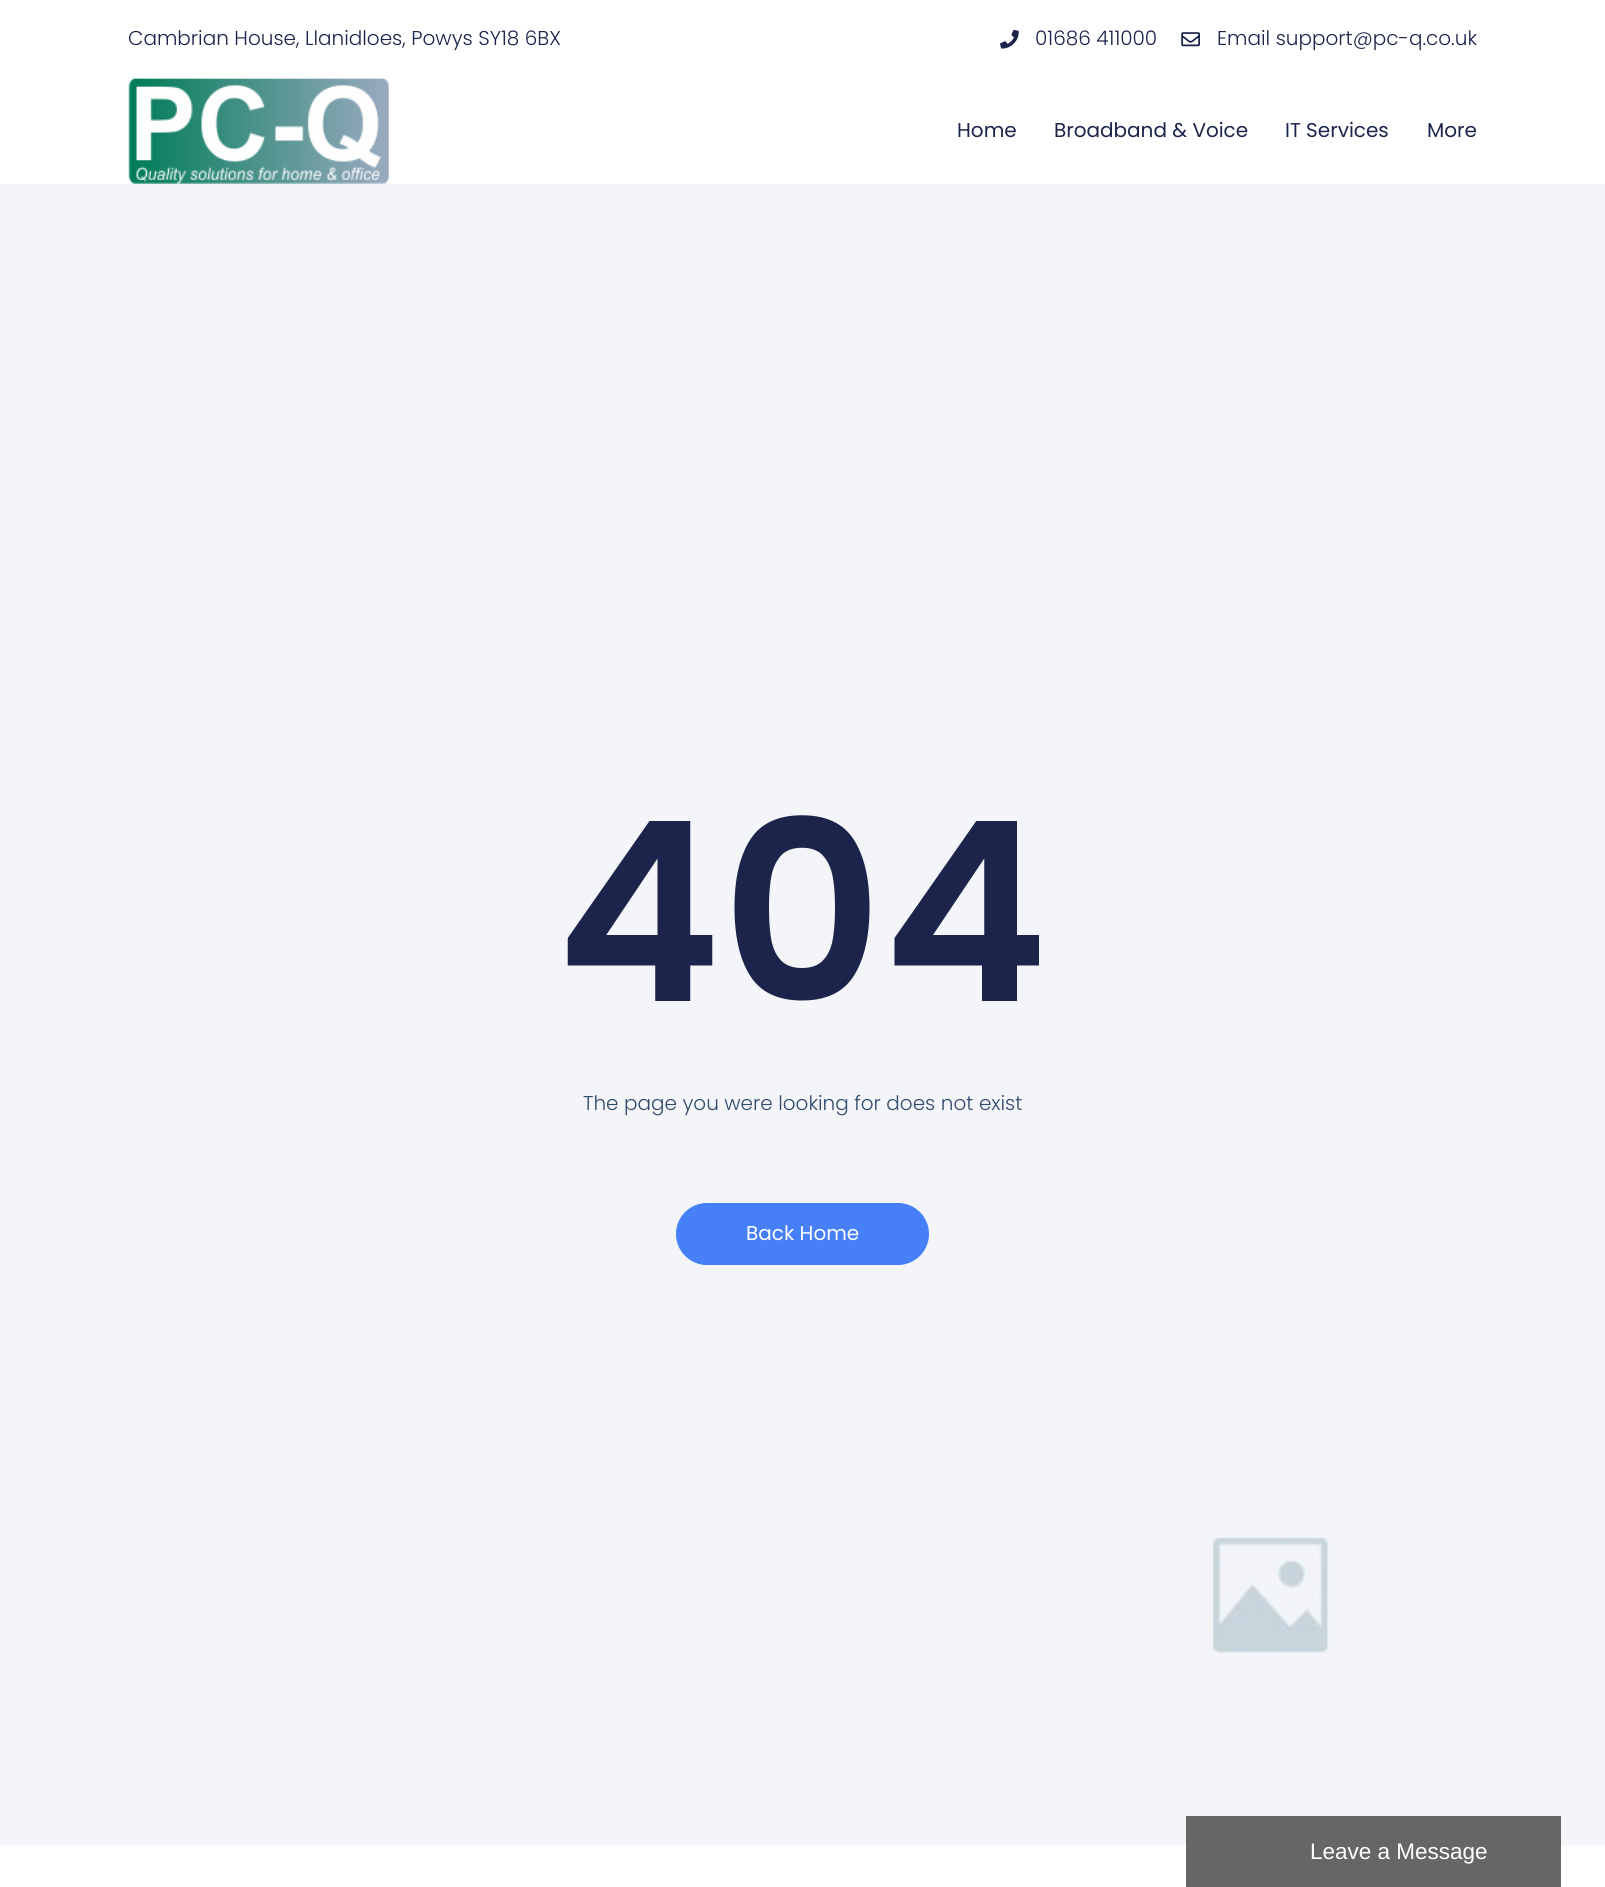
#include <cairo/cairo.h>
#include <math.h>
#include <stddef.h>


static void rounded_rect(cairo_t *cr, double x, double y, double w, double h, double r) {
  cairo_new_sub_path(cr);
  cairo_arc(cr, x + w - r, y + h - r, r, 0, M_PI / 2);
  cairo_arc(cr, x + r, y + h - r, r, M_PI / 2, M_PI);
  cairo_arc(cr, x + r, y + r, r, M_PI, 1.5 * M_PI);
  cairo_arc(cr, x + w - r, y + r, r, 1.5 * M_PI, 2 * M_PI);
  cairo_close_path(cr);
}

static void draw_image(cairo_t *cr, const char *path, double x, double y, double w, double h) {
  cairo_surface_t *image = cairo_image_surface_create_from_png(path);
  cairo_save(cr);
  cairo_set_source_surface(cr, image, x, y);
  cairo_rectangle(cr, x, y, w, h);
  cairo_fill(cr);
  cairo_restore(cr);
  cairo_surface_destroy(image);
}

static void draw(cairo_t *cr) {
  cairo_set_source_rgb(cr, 1, 1, 1);
  cairo_paint(cr);
  draw_image(cr, "images/1.png", 1000, 29, 19, 20);
  draw_image(cr, "images/2.png", 1181, 32, 19, 15);
  draw_image(cr, "images/3.png", 128, 78, 261, 106);
  cairo_set_source_rgb(cr, 243 / 255.0, 245 / 255.0, 248 / 255.0);
  cairo_rectangle(cr, 0, 184, 1605, 1661);
  cairo_fill(cr);
  draw_image(cr, "images/4.png", 1212, 1537, 117, 117);
  cairo_set_source_rgb(cr, 70 / 255.0, 127 / 255.0, 247 / 255.0);
  rounded_rect(cr, 676.5, 1203.5, 252, 61, 30.5);
  cairo_fill_preserve(cr);
  cairo_set_line_width(cr, 1);
  cairo_stroke(cr);
  cairo_set_source_rgb(cr, 102 / 255.0, 102 / 255.0, 102 / 255.0);
  cairo_rectangle(cr, 1186, 1816, 375, 71);
  cairo_fill(cr);
  cairo_select_font_face(cr, "Poppins Light", CAIRO_FONT_SLANT_NORMAL, CAIRO_FONT_WEIGHT_NORMAL);
  cairo_set_font_size(cr, 20);
  cairo_set_source_rgb(cr, 28 / 255.0, 36 / 255.0, 75 / 255.0);
  cairo_move_to(cr, 128, 45);
  cairo_show_text(cr, "Cambrian House, Llanidloes, Powys SY18 6BX");
  cairo_move_to(cr, 1035, 45);
  cairo_show_text(cr, "01686 411000");
  cairo_move_to(cr, 1217, 45);
  cairo_show_text(cr, "Email support@pc-q.co.uk");
  cairo_select_font_face(cr, "Poppins", CAIRO_FONT_SLANT_NORMAL, CAIRO_FONT_WEIGHT_NORMAL);
  cairo_move_to(cr, 957, 137);
  cairo_show_text(cr, "Home");
  cairo_move_to(cr, 1054, 137);
  cairo_show_text(cr, "Broadband & Voice");
  cairo_move_to(cr, 1285, 137);
  cairo_show_text(cr, "IT Services");
  cairo_move_to(cr, 1427, 137);
  cairo_show_text(cr, "More");
  cairo_select_font_face(cr, "Poppins SemiBold", CAIRO_FONT_SLANT_NORMAL, CAIRO_FONT_WEIGHT_NORMAL);
  cairo_set_font_size(cr, 250);
  cairo_move_to(cr, 556, 1001);
  cairo_show_text(cr, "404");
  cairo_select_font_face(cr, "Poppins Light", CAIRO_FONT_SLANT_NORMAL, CAIRO_FONT_WEIGHT_NORMAL);
  cairo_set_font_size(cr, 20);
  cairo_set_source_rgb(cr, 50 / 255.0, 74 / 255.0, 109 / 255.0);
  cairo_move_to(cr, 583, 1110);
  cairo_show_text(cr, "The page you were looking for does not exist");
  cairo_select_font_face(cr, "Poppins", CAIRO_FONT_SLANT_NORMAL, CAIRO_FONT_WEIGHT_NORMAL);
  cairo_set_source_rgb(cr, 1, 1, 1);
  cairo_move_to(cr, 746, 1240);
  cairo_show_text(cr, "Back Home");
  cairo_select_font_face(cr, "Liberation Sans", CAIRO_FONT_SLANT_NORMAL, CAIRO_FONT_WEIGHT_NORMAL);
  cairo_set_font_size(cr, 22.5);
  cairo_move_to(cr, 1310, 1859);
  cairo_show_text(cr, "Leave a Message");
}

int main(void) {
  cairo_surface_t *surface = cairo_image_surface_create(CAIRO_FORMAT_RGB24, 1605, 1887);
  cairo_t *cr = cairo_create(surface);
  cairo_font_options_t *options = cairo_font_options_create();
  cairo_font_options_set_hint_metrics(options, CAIRO_HINT_METRICS_OFF);
  cairo_font_options_set_hint_style(options, CAIRO_HINT_STYLE_NONE);
  cairo_set_font_options(cr, options);
  cairo_set_miter_limit(cr, 4);
  draw(cr);
  cairo_surface_write_to_png(surface, "out.png");
  cairo_font_options_destroy(options);
  cairo_destroy(cr);
  cairo_surface_destroy(surface);
  return 0;
}
